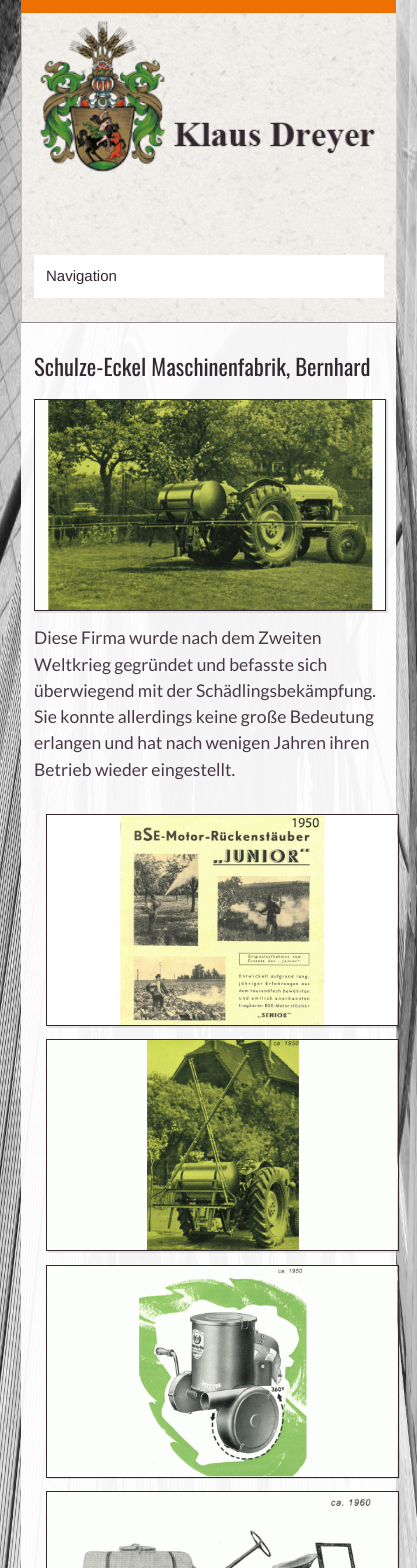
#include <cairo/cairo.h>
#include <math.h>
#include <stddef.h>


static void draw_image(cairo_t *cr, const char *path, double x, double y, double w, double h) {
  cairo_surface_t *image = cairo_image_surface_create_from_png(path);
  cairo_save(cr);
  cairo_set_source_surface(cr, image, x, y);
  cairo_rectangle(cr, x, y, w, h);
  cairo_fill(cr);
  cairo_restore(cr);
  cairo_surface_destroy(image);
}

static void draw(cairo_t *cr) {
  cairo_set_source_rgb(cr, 1, 1, 1);
  cairo_paint(cr);
  draw_image(cr, "images/1.png", 0, 0, 417, 1568);
  cairo_set_source_rgb(cr, 50 / 255.0, 39 / 255.0, 47 / 255.0);
  cairo_rectangle(cr, 21, 13, 375, 310);
  cairo_fill(cr);
  draw_image(cr, "images/2.png", 21, 0, 376, 323);
  cairo_set_source_rgb(cr, 238 / 255.0, 112 / 255.0, 0);
  cairo_rectangle(cr, 21, 0, 375, 13);
  cairo_fill(cr);
  draw_image(cr, "images/3.png", 40, 21, 335, 158);
  cairo_set_source_rgb(cr, 1, 1, 1);
  cairo_rectangle(cr, 34, 255, 350, 43);
  cairo_fill(cr);
  cairo_set_source_rgba(cr, 1, 1, 1, 0.95);
  cairo_rectangle(cr, 21, 323, 375, 1245);
  cairo_fill(cr);
  cairo_set_source_rgba(cr, 0, 0, 0, 0.1);
  cairo_new_path(cr);
  cairo_move_to(cr, 35, 611);
  cairo_line_to(cr, 35, 613);
  cairo_line_to(cr, 388, 613);
  cairo_line_to(cr, 388, 400);
  cairo_line_to(cr, 386, 400);
  cairo_line_to(cr, 386, 611);
  cairo_close_path(cr);
  cairo_fill(cr);
  cairo_rectangle(cr, 34.5, 399.5, 351, 211);
  cairo_set_source_rgb(cr, 50 / 255.0, 39 / 255.0, 47 / 255.0);
  cairo_set_line_width(cr, 1);
  cairo_stroke(cr);
  draw_image(cr, "images/4.png", 35, 400, 350, 210);
  cairo_set_source_rgba(cr, 0, 0, 0, 0.1);
  cairo_new_path(cr);
  cairo_move_to(cr, 48, 1026);
  cairo_line_to(cr, 48, 1028);
  cairo_line_to(cr, 400, 1028);
  cairo_line_to(cr, 400, 815);
  cairo_line_to(cr, 399, 815);
  cairo_line_to(cr, 399, 1026);
  cairo_close_path(cr);
  cairo_fill(cr);
  cairo_rectangle(cr, 46.5, 814.5, 352, 211);
  cairo_set_source_rgb(cr, 50 / 255.0, 39 / 255.0, 47 / 255.0);
  cairo_stroke(cr);
  draw_image(cr, "images/5.png", 47, 815, 351, 210);
  cairo_set_source_rgba(cr, 0, 0, 0, 0.1);
  cairo_new_path(cr);
  cairo_move_to(cr, 48, 1251);
  cairo_line_to(cr, 48, 1253);
  cairo_line_to(cr, 400, 1253);
  cairo_line_to(cr, 400, 1040);
  cairo_line_to(cr, 399, 1040);
  cairo_line_to(cr, 399, 1251);
  cairo_close_path(cr);
  cairo_fill(cr);
  cairo_rectangle(cr, 46.5, 1039.5, 352, 211);
  cairo_set_source_rgb(cr, 50 / 255.0, 39 / 255.0, 47 / 255.0);
  cairo_stroke(cr);
  draw_image(cr, "images/6.png", 47, 1040, 351, 210);
  cairo_set_source_rgba(cr, 0, 0, 0, 0.1);
  cairo_new_path(cr);
  cairo_move_to(cr, 48, 1478);
  cairo_line_to(cr, 48, 1479);
  cairo_line_to(cr, 400, 1479);
  cairo_line_to(cr, 400, 1266);
  cairo_line_to(cr, 399, 1266);
  cairo_line_to(cr, 399, 1478);
  cairo_close_path(cr);
  cairo_fill(cr);
  cairo_rectangle(cr, 46.5, 1265.5, 352, 212);
  cairo_set_source_rgb(cr, 50 / 255.0, 39 / 255.0, 47 / 255.0);
  cairo_stroke(cr);
  draw_image(cr, "images/7.png", 47, 1266, 351, 211);
  cairo_rectangle(cr, 46.5, 1491.5, 352, 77);
  cairo_stroke(cr);
  draw_image(cr, "images/8.png", 48, 1492, 350, 76);
  cairo_set_source_rgba(cr, 0, 0, 0, 0.1);
  cairo_new_path(cr);
  cairo_move_to(cr, 48, 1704);
  cairo_line_to(cr, 48, 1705);
  cairo_line_to(cr, 400, 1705);
  cairo_line_to(cr, 400, 1493);
  cairo_line_to(cr, 399, 1493);
  cairo_line_to(cr, 399, 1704);
  cairo_close_path(cr);
  cairo_fill(cr);
  cairo_select_font_face(cr, "Liberation Sans", CAIRO_FONT_SLANT_NORMAL, CAIRO_FONT_WEIGHT_NORMAL);
  cairo_set_font_size(cr, 15);
  cairo_set_source_rgb(cr, 50 / 255.0, 39 / 255.0, 47 / 255.0);
  cairo_move_to(cr, 46, 281);
  cairo_show_text(cr, "Navigation");
  cairo_select_font_face(cr, "Oswald", CAIRO_FONT_SLANT_NORMAL, CAIRO_FONT_WEIGHT_NORMAL);
  cairo_set_font_size(cr, 22.5);
  cairo_move_to(cr, 34, 376);
  cairo_show_text(cr, "Schulze-Eckel Maschinenfabrik, Bernhard");
  cairo_select_font_face(cr, "Lato", CAIRO_FONT_SLANT_NORMAL, CAIRO_FONT_WEIGHT_NORMAL);
  cairo_set_font_size(cr, 17.5);
  cairo_set_source_rgb(cr, 72 / 255.0, 56 / 255.0, 68 / 255.0);
  cairo_move_to(cr, 34, 644);
  cairo_show_text(cr, "Diese Firma wurde nach dem Zweiten");
  cairo_move_to(cr, 34, 671);
  cairo_show_text(cr, "Weltkrieg gegründet und befasste sich");
  cairo_move_to(cr, 34, 697);
  cairo_show_text(cr, "überwiegend mit der Schädlingsbekämpfung.");
  cairo_move_to(cr, 34, 723);
  cairo_show_text(cr, "Sie konnte allerdings keine große Bedeutung");
  cairo_move_to(cr, 34, 749);
  cairo_show_text(cr, "erlangen und hat nach wenigen Jahren ihren");
  cairo_move_to(cr, 34, 776);
  cairo_show_text(cr, "Betrieb wieder eingestellt.");
}

int main(void) {
  cairo_surface_t *surface = cairo_image_surface_create(CAIRO_FORMAT_RGB24, 417, 1568);
  cairo_t *cr = cairo_create(surface);
  cairo_font_options_t *options = cairo_font_options_create();
  cairo_font_options_set_hint_metrics(options, CAIRO_HINT_METRICS_OFF);
  cairo_font_options_set_hint_style(options, CAIRO_HINT_STYLE_NONE);
  cairo_set_font_options(cr, options);
  cairo_set_miter_limit(cr, 4);
  draw(cr);
  cairo_surface_write_to_png(surface, "out.png");
  cairo_font_options_destroy(options);
  cairo_destroy(cr);
  cairo_surface_destroy(surface);
  return 0;
}
